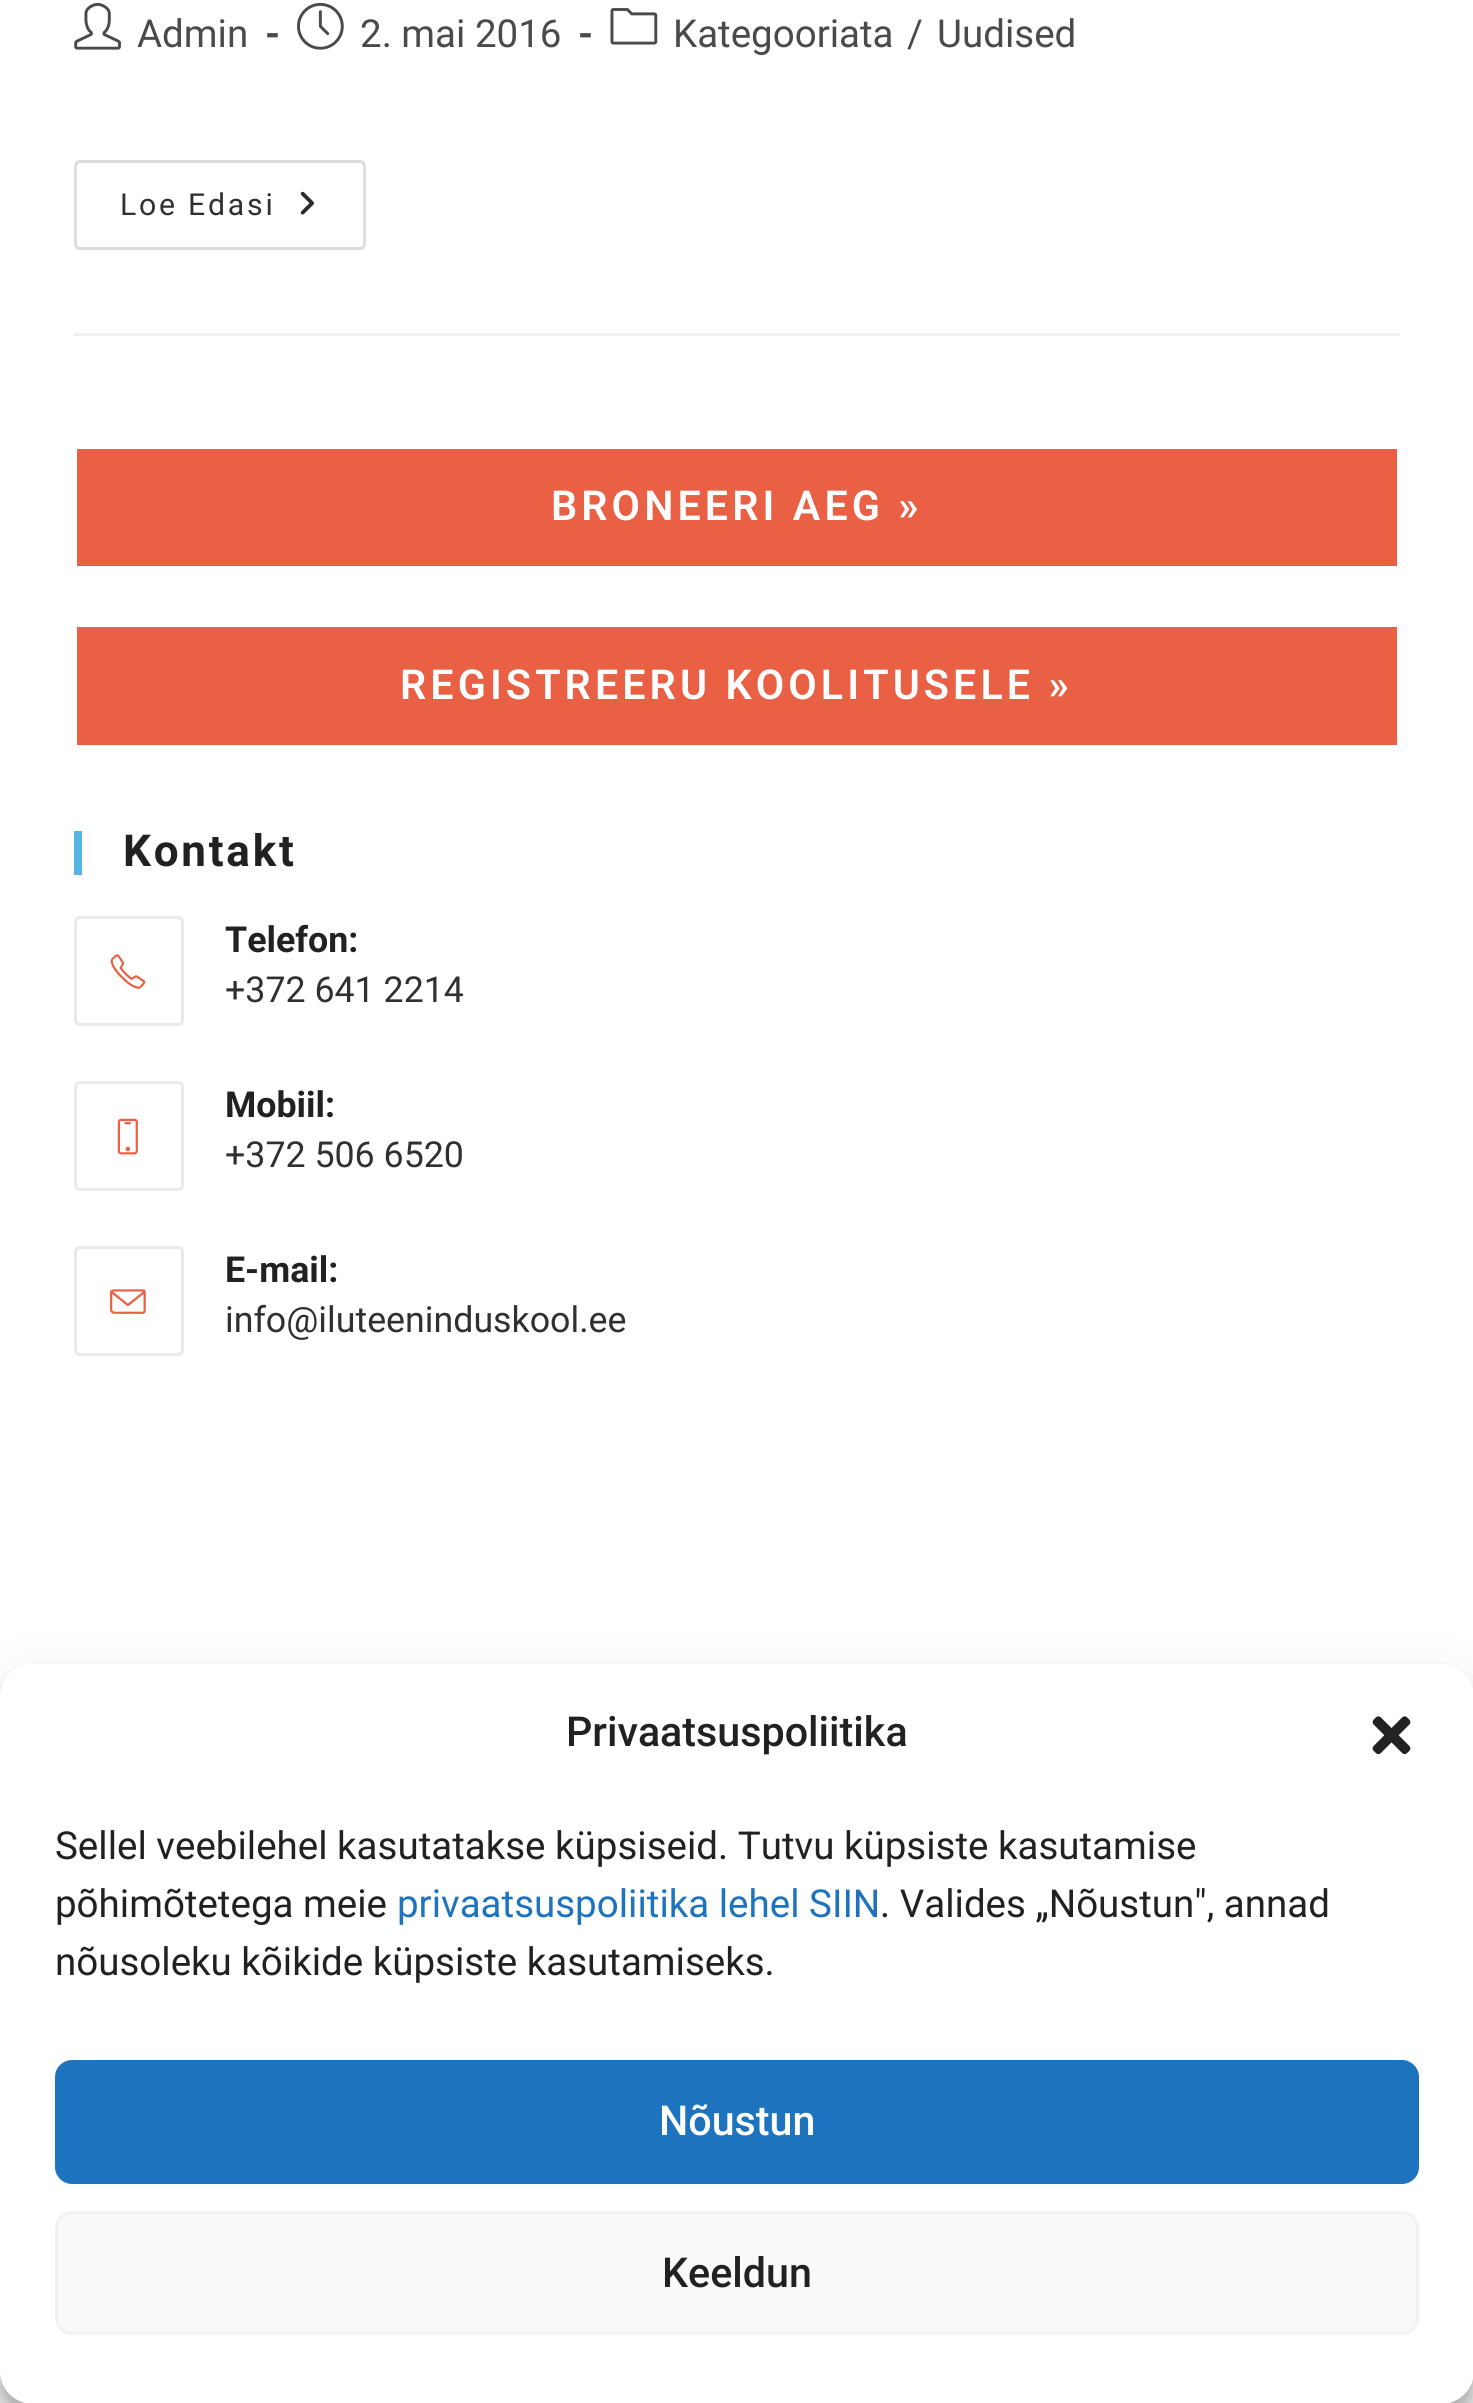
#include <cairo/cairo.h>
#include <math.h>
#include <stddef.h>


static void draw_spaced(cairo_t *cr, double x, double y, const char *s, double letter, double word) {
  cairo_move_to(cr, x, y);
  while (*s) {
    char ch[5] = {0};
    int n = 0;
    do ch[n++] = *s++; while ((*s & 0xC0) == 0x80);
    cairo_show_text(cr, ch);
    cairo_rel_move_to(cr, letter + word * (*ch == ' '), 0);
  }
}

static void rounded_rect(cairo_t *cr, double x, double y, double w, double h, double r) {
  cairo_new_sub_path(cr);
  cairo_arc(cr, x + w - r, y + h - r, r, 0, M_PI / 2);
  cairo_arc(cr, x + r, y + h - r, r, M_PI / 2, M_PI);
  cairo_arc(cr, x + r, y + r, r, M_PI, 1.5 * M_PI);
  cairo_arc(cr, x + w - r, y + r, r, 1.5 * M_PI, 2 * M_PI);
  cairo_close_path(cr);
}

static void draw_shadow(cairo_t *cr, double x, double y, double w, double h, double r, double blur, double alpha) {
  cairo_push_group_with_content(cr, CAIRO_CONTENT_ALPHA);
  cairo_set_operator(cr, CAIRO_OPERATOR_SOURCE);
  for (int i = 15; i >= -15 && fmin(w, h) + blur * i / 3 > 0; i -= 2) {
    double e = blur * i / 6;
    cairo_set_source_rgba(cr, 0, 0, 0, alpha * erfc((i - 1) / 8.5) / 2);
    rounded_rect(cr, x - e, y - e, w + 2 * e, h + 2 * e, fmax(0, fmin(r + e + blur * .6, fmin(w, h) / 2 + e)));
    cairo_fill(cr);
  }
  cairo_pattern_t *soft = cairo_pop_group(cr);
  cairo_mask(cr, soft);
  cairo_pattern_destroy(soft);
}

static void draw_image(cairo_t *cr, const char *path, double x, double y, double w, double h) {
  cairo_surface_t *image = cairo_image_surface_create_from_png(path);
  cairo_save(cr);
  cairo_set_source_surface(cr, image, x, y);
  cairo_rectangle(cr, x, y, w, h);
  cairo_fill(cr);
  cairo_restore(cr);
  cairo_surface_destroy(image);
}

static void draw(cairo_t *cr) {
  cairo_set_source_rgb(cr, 1, 1, 1);
  cairo_paint(cr);
  cairo_set_source_rgb(cr, 241 / 255.0, 241 / 255.0, 241 / 255.0);
  cairo_rectangle(cr, 74, 333, 1326, 3);
  cairo_fill(cr);
  draw_image(cr, "images/1.png", 74, 2, 47, 48);
  draw_image(cr, "images/2.png", 297, 2, 47, 48);
  draw_image(cr, "images/3.png", 610, 8, 48, 37);
  rounded_rect(cr, 75.5, 161.5, 289, 87, 4.5);
  cairo_set_source_rgb(cr, 221 / 255.0, 221 / 255.0, 221 / 255.0);
  cairo_set_line_width(cr, 3);
  cairo_stroke(cr);
  draw_image(cr, "images/4.png", 300, 191, 14, 24);
  cairo_set_source_rgb(cr, 234 / 255.0, 96 / 255.0, 69 / 255.0);
  cairo_rectangle(cr, 77, 449, 1320, 117);
  cairo_fill(cr);
  cairo_rectangle(cr, 77, 627, 1320, 118);
  cairo_fill(cr);
  cairo_set_source_rgb(cr, 86 / 255.0, 181 / 255.0, 224 / 255.0);
  cairo_rectangle(cr, 74, 831, 8, 44);
  cairo_fill(cr);
  rounded_rect(cr, 75.5, 917.5, 107, 107, 4.5);
  cairo_set_source_rgb(cr, 233 / 255.0, 233 / 255.0, 233 / 255.0);
  cairo_stroke(cr);
  draw_image(cr, "images/5.png", 110, 954, 36, 35);
  rounded_rect(cr, 75.5, 1082.5, 107, 107, 4.5);
  cairo_stroke(cr);
  draw_image(cr, "images/6.png", 117, 1118, 21, 37);
  rounded_rect(cr, 75.5, 1247.5, 107, 107, 4.5);
  cairo_stroke(cr);
  draw_image(cr, "images/7.png", 110, 1289, 36, 25);
  cairo_set_source_rgb(cr, 0, 0, 0);
  draw_shadow(cr, 0, 1680, 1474, 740, 33, 8, 0.23);
  draw_shadow(cr, 0, 1691, 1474, 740, 33, 27.5, 0.19);
  cairo_set_source_rgb(cr, 1, 1, 1);
  rounded_rect(cr, 0, 1664, 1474, 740, 33);
  cairo_fill(cr);
  draw_image(cr, "images/8.png", 1372, 1716, 39, 39);
  cairo_set_source_rgb(cr, 30 / 255.0, 115 / 255.0, 190 / 255.0);
  rounded_rect(cr, 56.5, 2061.5, 1361, 121, 15.5);
  cairo_fill_preserve(cr);
  cairo_stroke(cr);
  cairo_set_source_rgb(cr, 249 / 255.0, 249 / 255.0, 249 / 255.0);
  rounded_rect(cr, 56.5, 2212.5, 1361, 121, 15.5);
  cairo_fill_preserve(cr);
  cairo_set_source_rgb(cr, 242 / 255.0, 242 / 255.0, 242 / 255.0);
  cairo_stroke(cr);
  cairo_select_font_face(cr, "Roboto", CAIRO_FONT_SLANT_NORMAL, CAIRO_FONT_WEIGHT_NORMAL);
  cairo_set_font_size(cr, 38.5);
  cairo_set_source_rgb(cr, 74 / 255.0, 74 / 255.0, 74 / 255.0);
  cairo_move_to(cr, 137, 47);
  cairo_show_text(cr, "Admin");
  cairo_select_font_face(cr, "Roboto", CAIRO_FONT_SLANT_NORMAL, CAIRO_FONT_WEIGHT_BOLD);
  cairo_move_to(cr, 265, 47);
  cairo_show_text(cr, "-");
  cairo_select_font_face(cr, "Roboto", CAIRO_FONT_SLANT_NORMAL, CAIRO_FONT_WEIGHT_NORMAL);
  cairo_move_to(cr, 360, 47);
  cairo_show_text(cr, "2. mai 2016");
  cairo_select_font_face(cr, "Roboto", CAIRO_FONT_SLANT_NORMAL, CAIRO_FONT_WEIGHT_BOLD);
  cairo_move_to(cr, 578, 47);
  cairo_show_text(cr, "-");
  cairo_select_font_face(cr, "Roboto", CAIRO_FONT_SLANT_NORMAL, CAIRO_FONT_WEIGHT_NORMAL);
  cairo_move_to(cr, 673, 47);
  cairo_show_text(cr, "Kategooriata");
  cairo_move_to(cr, 907, 47);
  cairo_show_text(cr, "/");
  cairo_move_to(cr, 937, 47);
  cairo_show_text(cr, "Uudised");
  cairo_set_font_size(cr, 30.25);
  cairo_set_source_rgb(cr, 48 / 255.0, 48 / 255.0, 48 / 255.0);
  draw_spaced(cr, 120, 215, "Loe Edasi", 2.75, 0);
  cairo_select_font_face(cr, "Roboto SemiBold", CAIRO_FONT_SLANT_NORMAL, CAIRO_FONT_WEIGHT_NORMAL);
  cairo_set_font_size(cr, 41.25);
  cairo_set_source_rgb(cr, 1, 1, 1);
  draw_spaced(cr, 551, 520, "BRONEERI AEG »", 4.1, 0);
  draw_spaced(cr, 400, 699, "REGISTREERU KOOLITUSELE »", 4.1, 0);
  cairo_select_font_face(cr, "Roboto", CAIRO_FONT_SLANT_NORMAL, CAIRO_FONT_WEIGHT_BOLD);
  cairo_set_font_size(cr, 44);
  cairo_set_source_rgb(cr, 33 / 255.0, 33 / 255.0, 33 / 255.0);
  draw_spaced(cr, 123, 866, "Kontakt", 2.75, 0);
  cairo_set_font_size(cr, 35.75);
  cairo_move_to(cr, 225, 952);
  cairo_show_text(cr, "Telefon:");
  cairo_select_font_face(cr, "Roboto", CAIRO_FONT_SLANT_NORMAL, CAIRO_FONT_WEIGHT_NORMAL);
  cairo_set_source_rgb(cr, 48 / 255.0, 48 / 255.0, 48 / 255.0);
  cairo_move_to(cr, 225, 1002);
  cairo_show_text(cr, "+372 641 2214");
  cairo_select_font_face(cr, "Roboto", CAIRO_FONT_SLANT_NORMAL, CAIRO_FONT_WEIGHT_BOLD);
  cairo_set_source_rgb(cr, 33 / 255.0, 33 / 255.0, 33 / 255.0);
  cairo_move_to(cr, 225, 1117);
  cairo_show_text(cr, "Mobiil:");
  cairo_select_font_face(cr, "Roboto", CAIRO_FONT_SLANT_NORMAL, CAIRO_FONT_WEIGHT_NORMAL);
  cairo_set_source_rgb(cr, 48 / 255.0, 48 / 255.0, 48 / 255.0);
  cairo_move_to(cr, 225, 1167);
  cairo_show_text(cr, "+372 506 6520");
  cairo_select_font_face(cr, "Roboto", CAIRO_FONT_SLANT_NORMAL, CAIRO_FONT_WEIGHT_BOLD);
  cairo_set_source_rgb(cr, 33 / 255.0, 33 / 255.0, 33 / 255.0);
  cairo_move_to(cr, 225, 1282);
  cairo_show_text(cr, "E-mail:");
  cairo_select_font_face(cr, "Roboto", CAIRO_FONT_SLANT_NORMAL, CAIRO_FONT_WEIGHT_NORMAL);
  cairo_set_source_rgb(cr, 48 / 255.0, 48 / 255.0, 48 / 255.0);
  cairo_move_to(cr, 225, 1332);
  cairo_show_text(cr, "info@iluteeninduskool.ee");
  cairo_select_font_face(cr, "Roboto Medium", CAIRO_FONT_SLANT_NORMAL, CAIRO_FONT_WEIGHT_NORMAL);
  cairo_set_font_size(cr, 41.25);
  cairo_set_source_rgb(cr, 33 / 255.0, 33 / 255.0, 33 / 255.0);
  cairo_move_to(cr, 566, 1746);
  cairo_show_text(cr, "Privaatsuspoliitika");
  cairo_select_font_face(cr, "Roboto", CAIRO_FONT_SLANT_NORMAL, CAIRO_FONT_WEIGHT_NORMAL);
  cairo_set_font_size(cr, 38.5);
  cairo_move_to(cr, 55, 1859);
  cairo_show_text(cr, "Sellel veebilehel kasutatakse küpsiseid. Tutvu küpsiste kasutamise");
  cairo_move_to(cr, 55, 1917);
  cairo_show_text(cr, "põhimõtetega meie");
  cairo_set_source_rgb(cr, 30 / 255.0, 115 / 255.0, 190 / 255.0);
  cairo_move_to(cr, 397, 1917);
  cairo_show_text(cr, "privaatsuspoliitika lehel SIIN");
  cairo_set_source_rgb(cr, 33 / 255.0, 33 / 255.0, 33 / 255.0);
  cairo_move_to(cr, 880, 1917);
  cairo_show_text(cr, ". Valides „Nõustun\", annad");
  cairo_move_to(cr, 55, 1975);
  cairo_show_text(cr, "nõusoleku kõikide küpsiste kasutamiseks.");
  cairo_select_font_face(cr, "Roboto Medium", CAIRO_FONT_SLANT_NORMAL, CAIRO_FONT_WEIGHT_NORMAL);
  cairo_set_font_size(cr, 41.25);
  cairo_set_source_rgb(cr, 1, 1, 1);
  cairo_move_to(cr, 659, 2135);
  cairo_show_text(cr, "Nõustun");
  cairo_set_source_rgb(cr, 33 / 255.0, 33 / 255.0, 33 / 255.0);
  cairo_move_to(cr, 662, 2287);
  cairo_show_text(cr, "Keeldun");
}

int main(void) {
  cairo_surface_t *surface = cairo_image_surface_create(CAIRO_FORMAT_RGB24, 1473, 2403);
  cairo_t *cr = cairo_create(surface);
  cairo_font_options_t *options = cairo_font_options_create();
  cairo_font_options_set_hint_metrics(options, CAIRO_HINT_METRICS_OFF);
  cairo_font_options_set_hint_style(options, CAIRO_HINT_STYLE_NONE);
  cairo_set_font_options(cr, options);
  cairo_set_miter_limit(cr, 4);
  draw(cr);
  cairo_surface_write_to_png(surface, "out.png");
  cairo_font_options_destroy(options);
  cairo_destroy(cr);
  cairo_surface_destroy(surface);
  return 0;
}
